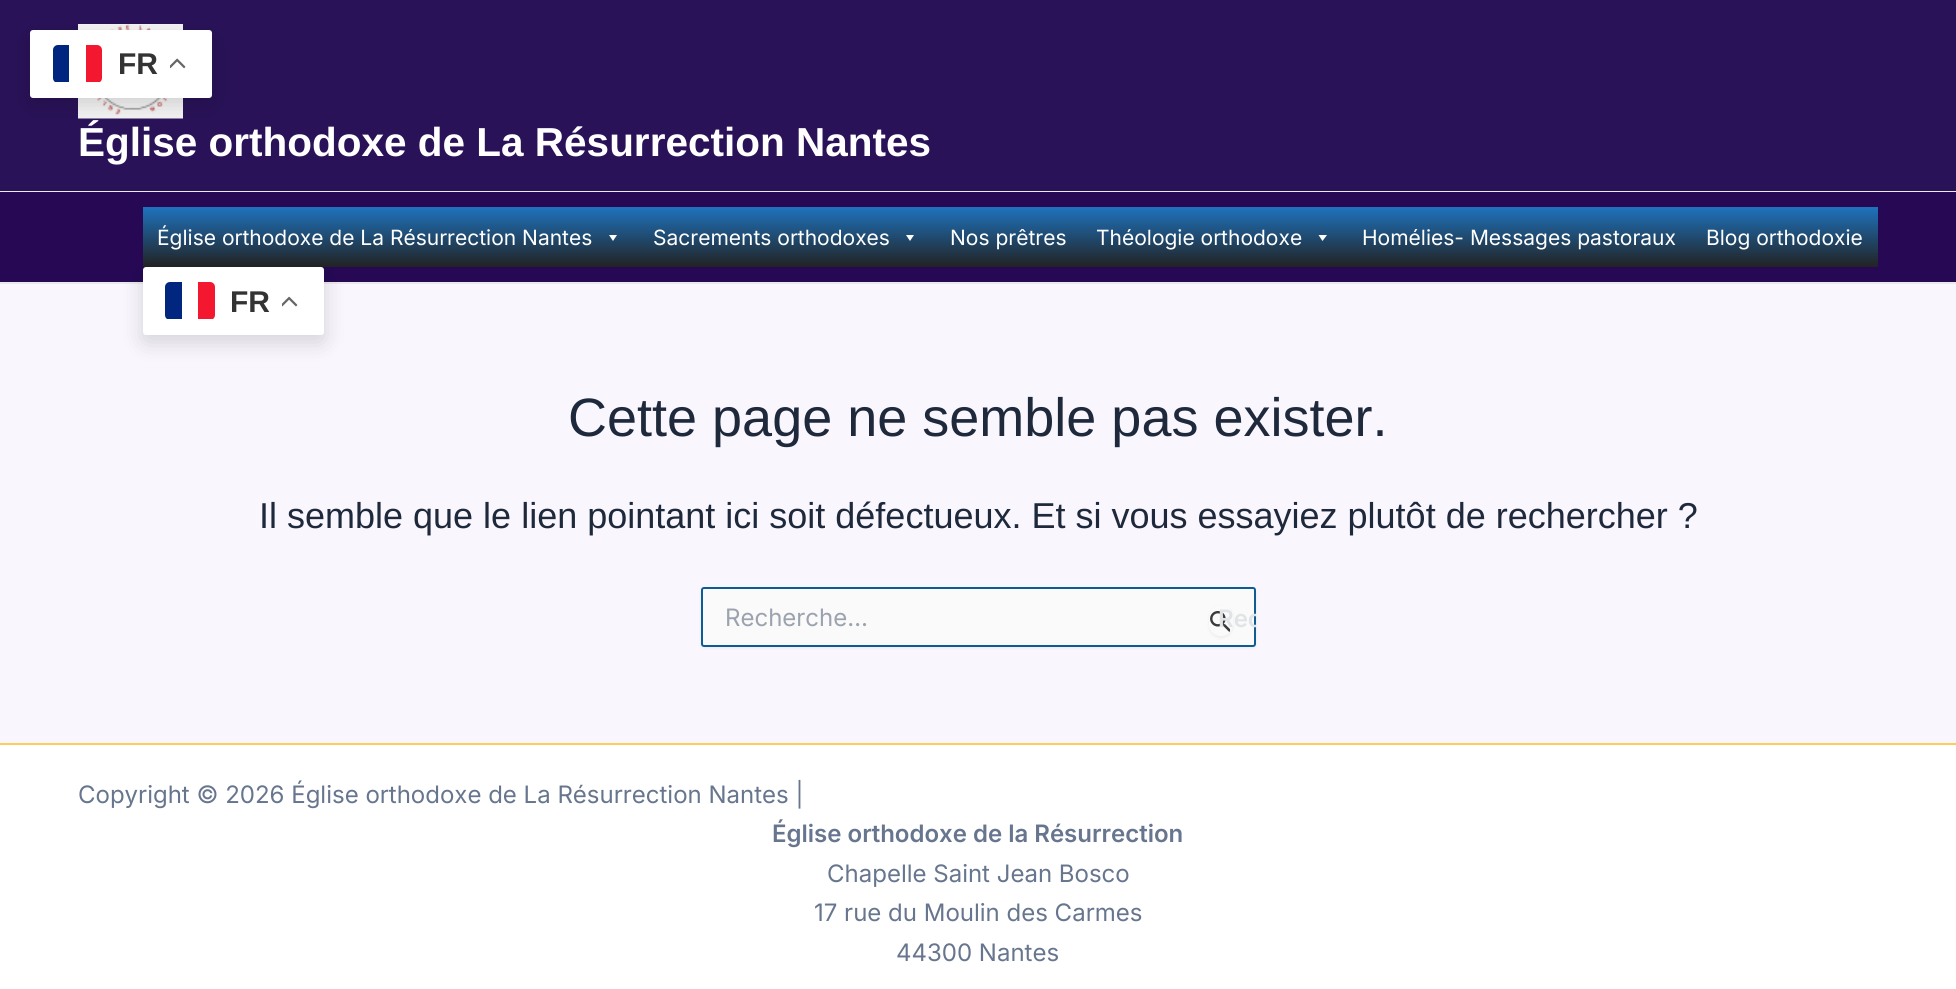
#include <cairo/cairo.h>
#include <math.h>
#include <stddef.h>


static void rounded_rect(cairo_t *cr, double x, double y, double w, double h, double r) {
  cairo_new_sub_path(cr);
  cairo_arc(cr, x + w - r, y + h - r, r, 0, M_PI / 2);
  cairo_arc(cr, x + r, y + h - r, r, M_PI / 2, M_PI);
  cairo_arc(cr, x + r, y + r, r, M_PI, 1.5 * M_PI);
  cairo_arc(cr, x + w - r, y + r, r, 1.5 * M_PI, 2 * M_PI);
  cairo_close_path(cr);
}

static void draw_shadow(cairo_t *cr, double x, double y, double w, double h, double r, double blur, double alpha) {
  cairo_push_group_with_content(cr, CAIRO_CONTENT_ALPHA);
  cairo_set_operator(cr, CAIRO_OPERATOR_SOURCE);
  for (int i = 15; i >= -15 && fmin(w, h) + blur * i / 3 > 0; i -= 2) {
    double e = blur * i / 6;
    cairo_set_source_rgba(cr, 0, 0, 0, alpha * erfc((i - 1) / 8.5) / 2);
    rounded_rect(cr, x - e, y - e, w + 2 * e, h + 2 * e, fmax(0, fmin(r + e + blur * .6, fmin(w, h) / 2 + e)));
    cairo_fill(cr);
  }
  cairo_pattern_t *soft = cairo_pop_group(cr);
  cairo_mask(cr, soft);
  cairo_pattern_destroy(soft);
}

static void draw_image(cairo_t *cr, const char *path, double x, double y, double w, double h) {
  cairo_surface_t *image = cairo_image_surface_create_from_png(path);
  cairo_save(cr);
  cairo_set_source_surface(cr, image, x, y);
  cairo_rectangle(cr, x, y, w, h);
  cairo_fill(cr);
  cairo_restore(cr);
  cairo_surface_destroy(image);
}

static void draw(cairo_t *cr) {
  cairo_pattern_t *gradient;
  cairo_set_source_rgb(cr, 249 / 255.0, 246 / 255.0, 254 / 255.0);
  cairo_paint(cr);
  cairo_set_source_rgb(cr, 41 / 255.0, 18 / 255.0, 88 / 255.0);
  cairo_rectangle(cr, 0, 0, 1956, 191);
  cairo_fill(cr);
  draw_image(cr, "images/2.png", 78, 24, 105, 95);
  cairo_set_source_rgb(cr, 0, 0, 0);
  draw_shadow(cr, 30, 38, 182, 67, 3, 11, 0.15);
  cairo_set_source_rgb(cr, 1, 1, 1);
  rounded_rect(cr, 30, 30, 182, 68, 3);
  cairo_fill(cr);
  cairo_save(cr);
  rounded_rect(cr, 53, 45, 49, 38, 5);
  cairo_clip(cr);
  cairo_set_source_rgb(cr, 0, 38 / 255.0, 127 / 255.0);
  cairo_new_path(cr);
  cairo_move_to(cr, 58, 45);
  cairo_line_to(cr, 69, 45);
  cairo_line_to(cr, 69, 82);
  cairo_line_to(cr, 53, 82);
  cairo_line_to(cr, 53, 50);
  cairo_curve_to(cr, 53, 47, 55, 45, 58, 45);
  cairo_close_path(cr);
  cairo_fill(cr);
  cairo_set_source_rgb(cr, 243 / 255.0, 24 / 255.0, 48 / 255.0);
  cairo_new_path(cr);
  cairo_move_to(cr, 86, 45);
  cairo_line_to(cr, 97, 45);
  cairo_curve_to(cr, 100, 45, 102, 47, 102, 50);
  cairo_line_to(cr, 102, 82);
  cairo_line_to(cr, 86, 82);
  cairo_close_path(cr);
  cairo_fill(cr);
  cairo_restore(cr);
  draw_image(cr, "images/1.png", 170, 58, 16, 11);
  cairo_set_source_rgb(cr, 234 / 255.0, 234 / 255.0, 234 / 255.0);
  cairo_rectangle(cr, 0, 191, 1956, 1);
  cairo_fill(cr);
  cairo_set_source_rgb(cr, 38 / 255.0, 8 / 255.0, 85 / 255.0);
  cairo_rectangle(cr, 0, 192, 1956, 90);
  cairo_fill(cr);
  cairo_set_source_rgb(cr, 234 / 255.0, 234 / 255.0, 234 / 255.0);
  cairo_rectangle(cr, 0, 282, 1956, 2);
  cairo_fill(cr);
  gradient = cairo_pattern_create_linear(1010, 207, 1010, 267);
  cairo_pattern_add_color_stop_rgba(gradient, 0, 30 / 255.0, 115 / 255.0, 190 / 255.0, 1);
  cairo_pattern_add_color_stop_rgba(gradient, 1, 34 / 255.0, 34 / 255.0, 34 / 255.0, 1);
  cairo_set_source(cr, gradient);
  cairo_pattern_destroy(gradient);
  cairo_rectangle(cr, 143, 207, 1735, 60);
  cairo_fill(cr);
  cairo_set_source_rgb(cr, 1, 1, 1);
  cairo_new_path(cr);
  cairo_move_to(cr, 617, 235);
  cairo_line_to(cr, 613, 241);
  cairo_line_to(cr, 609, 235);
  cairo_close_path(cr);
  cairo_fill(cr);
  cairo_new_path(cr);
  cairo_move_to(cr, 914, 235);
  cairo_line_to(cr, 910, 241);
  cairo_line_to(cr, 906, 235);
  cairo_close_path(cr);
  cairo_fill(cr);
  cairo_new_path(cr);
  cairo_move_to(cr, 1327, 235);
  cairo_line_to(cr, 1322.5, 241);
  cairo_line_to(cr, 1318.5, 235);
  cairo_close_path(cr);
  cairo_fill(cr);
  cairo_set_source_rgb(cr, 0, 0, 0);
  draw_shadow(cr, 143, 275, 181, 67, 3, 11, 0.15);
  cairo_set_source_rgb(cr, 1, 1, 1);
  rounded_rect(cr, 143, 267, 181, 68, 3);
  cairo_fill(cr);
  cairo_save(cr);
  rounded_rect(cr, 165, 282, 50, 38, 5);
  cairo_clip(cr);
  cairo_set_source_rgb(cr, 0, 38 / 255.0, 127 / 255.0);
  cairo_new_path(cr);
  cairo_move_to(cr, 170, 282);
  cairo_line_to(cr, 182, 282);
  cairo_line_to(cr, 182, 319);
  cairo_line_to(cr, 165, 319);
  cairo_line_to(cr, 165, 287);
  cairo_curve_to(cr, 165, 284, 167, 282, 170, 282);
  cairo_close_path(cr);
  cairo_fill(cr);
  cairo_set_source_rgb(cr, 243 / 255.0, 24 / 255.0, 48 / 255.0);
  cairo_new_path(cr);
  cairo_move_to(cr, 198, 282);
  cairo_line_to(cr, 210, 282);
  cairo_curve_to(cr, 213, 282, 215, 284, 215, 287);
  cairo_line_to(cr, 215, 319);
  cairo_line_to(cr, 198, 319);
  cairo_close_path(cr);
  cairo_fill(cr);
  cairo_restore(cr);
  draw_image(cr, "images/3.png", 282, 296, 16, 11);
  cairo_set_source_rgb(cr, 0, 0, 0);
  draw_shadow(cr, 701, 588, 555, 60, 3, 1.5, 0.05);
  cairo_set_source_rgb(cr, 250 / 255.0, 250 / 255.0, 250 / 255.0);
  rounded_rect(cr, 702, 588, 553, 58, 2);
  cairo_fill_preserve(cr);
  cairo_set_source_rgb(cr, 13 / 255.0, 93 / 255.0, 147 / 255.0);
  cairo_stroke(cr);
  cairo_save(cr);
  cairo_set_fill_rule(cr, CAIRO_FILL_RULE_EVEN_ODD);
  cairo_new_path(cr);
  cairo_move_to(cr, 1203, 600);
  cairo_line_to(cr, 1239, 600);
  cairo_line_to(cr, 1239, 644);
  cairo_line_to(cr, 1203, 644);
  cairo_close_path(cr);
  cairo_move_to(cr, 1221, 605);
  cairo_curve_to(cr, 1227.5, 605, 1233, 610.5, 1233, 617);
  cairo_line_to(cr, 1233, 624);
  cairo_curve_to(cr, 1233, 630.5, 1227.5, 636, 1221, 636);
  cairo_curve_to(cr, 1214.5, 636, 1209, 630.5, 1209, 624);
  cairo_line_to(cr, 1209, 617);
  cairo_curve_to(cr, 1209, 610.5, 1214.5, 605, 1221, 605);
  cairo_close_path(cr);
  cairo_clip(cr);
  cairo_set_source_rgb(cr, 0, 0, 0);
  draw_shadow(cr, 1209, 606, 24, 32, 12, 1.5, 0.05);
  cairo_restore(cr);
  draw_image(cr, "images/4.png", 1210, 611, 20, 21);
  cairo_set_source_rgb(cr, 1, 1, 1);
  cairo_rectangle(cr, 0, 745, 1956, 244);
  cairo_fill(cr);
  cairo_set_source_rgb(cr, 1, 205 / 255.0, 87 / 255.0);
  cairo_rectangle(cr, 0, 743, 1956, 2);
  cairo_fill(cr);
  cairo_select_font_face(cr, "Liberation Sans", CAIRO_FONT_SLANT_NORMAL, CAIRO_FONT_WEIGHT_BOLD);
  cairo_set_font_size(cr, 30);
  cairo_set_source_rgb(cr, 51 / 255.0, 51 / 255.0, 51 / 255.0);
  cairo_move_to(cr, 118, 74);
  cairo_show_text(cr, "FR");
  cairo_set_font_size(cr, 40.5);
  cairo_set_source_rgb(cr, 1, 1, 1);
  cairo_move_to(cr, 78, 156);
  cairo_show_text(cr, "Église orthodoxe de La Résurrection Nantes");
  cairo_select_font_face(cr, "Inter", CAIRO_FONT_SLANT_NORMAL, CAIRO_FONT_WEIGHT_NORMAL);
  cairo_set_font_size(cr, 21);
  cairo_move_to(cr, 157, 245);
  cairo_show_text(cr, "Église orthodoxe de La Résurrection Nantes");
  cairo_move_to(cr, 653, 245);
  cairo_show_text(cr, "Sacrements orthodoxes");
  cairo_move_to(cr, 950, 245);
  cairo_show_text(cr, "Nos prêtres");
  cairo_move_to(cr, 1096, 245);
  cairo_show_text(cr, "Théologie orthodoxe");
  cairo_move_to(cr, 1362, 245);
  cairo_show_text(cr, "Homélies- Messages pastoraux");
  cairo_move_to(cr, 1706, 245);
  cairo_show_text(cr, "Blog orthodoxie");
  cairo_select_font_face(cr, "Liberation Sans", CAIRO_FONT_SLANT_NORMAL, CAIRO_FONT_WEIGHT_BOLD);
  cairo_set_font_size(cr, 30);
  cairo_set_source_rgb(cr, 51 / 255.0, 51 / 255.0, 51 / 255.0);
  cairo_move_to(cr, 230, 312);
  cairo_show_text(cr, "FR");
  cairo_select_font_face(cr, "Liberation Sans", CAIRO_FONT_SLANT_NORMAL, CAIRO_FONT_WEIGHT_NORMAL);
  cairo_set_font_size(cr, 54);
  cairo_set_source_rgb(cr, 30 / 255.0, 41 / 255.0, 59 / 255.0);
  cairo_move_to(cr, 568, 436);
  cairo_show_text(cr, "Cette page ne semble pas exister.");
  cairo_set_font_size(cr, 36);
  cairo_move_to(cr, 259, 528);
  cairo_show_text(cr, "Il semble que le lien pointant ici soit défectueux. Et si vous essayiez plutôt de rechercher ?");
  cairo_select_font_face(cr, "Inter", CAIRO_FONT_SLANT_NORMAL, CAIRO_FONT_WEIGHT_NORMAL);
  cairo_set_font_size(cr, 24);
  cairo_set_source_rgb(cr, 156 / 255.0, 163 / 255.0, 175 / 255.0);
  cairo_move_to(cr, 725, 626);
  cairo_show_text(cr, "Recherche…");
  cairo_save(cr);
  rounded_rect(cr, 1188, 587, 68, 63, 3);
  cairo_clip(cr);
  cairo_select_font_face(cr, "Inter SemiBold", CAIRO_FONT_SLANT_NORMAL, CAIRO_FONT_WEIGHT_NORMAL);
  cairo_set_source_rgb(cr, 225 / 255.0, 228 / 255.0, 230 / 255.0);
  cairo_move_to(cr, 1218, 627);
  cairo_show_text(cr, "Rec");
  cairo_restore(cr);
  cairo_set_source_rgb(cr, 103 / 255.0, 118 / 255.0, 142 / 255.0);
  cairo_move_to(cr, 78, 803);
  cairo_show_text(cr, "Copyright © 2026 Église orthodoxe de La Résurrection Nantes |");
  cairo_select_font_face(cr, "Inter SemiBold", CAIRO_FONT_SLANT_NORMAL, CAIRO_FONT_WEIGHT_NORMAL);
  cairo_move_to(cr, 772, 842);
  cairo_show_text(cr, "Église orthodoxe de la Résurrection");
  cairo_select_font_face(cr, "Inter", CAIRO_FONT_SLANT_NORMAL, CAIRO_FONT_WEIGHT_NORMAL);
  cairo_move_to(cr, 827, 882);
  cairo_show_text(cr, "Chapelle Saint Jean Bosco");
  cairo_move_to(cr, 814, 921);
  cairo_show_text(cr, "17 rue du Moulin des Carmes");
  cairo_move_to(cr, 896, 961);
  cairo_show_text(cr, "44300 Nantes");
}

int main(void) {
  cairo_surface_t *surface = cairo_image_surface_create(CAIRO_FORMAT_RGB24, 1956, 989);
  cairo_t *cr = cairo_create(surface);
  cairo_font_options_t *options = cairo_font_options_create();
  cairo_font_options_set_hint_metrics(options, CAIRO_HINT_METRICS_OFF);
  cairo_font_options_set_hint_style(options, CAIRO_HINT_STYLE_NONE);
  cairo_set_font_options(cr, options);
  cairo_set_miter_limit(cr, 4);
  draw(cr);
  cairo_surface_write_to_png(surface, "out.png");
  cairo_font_options_destroy(options);
  cairo_destroy(cr);
  cairo_surface_destroy(surface);
  return 0;
}
